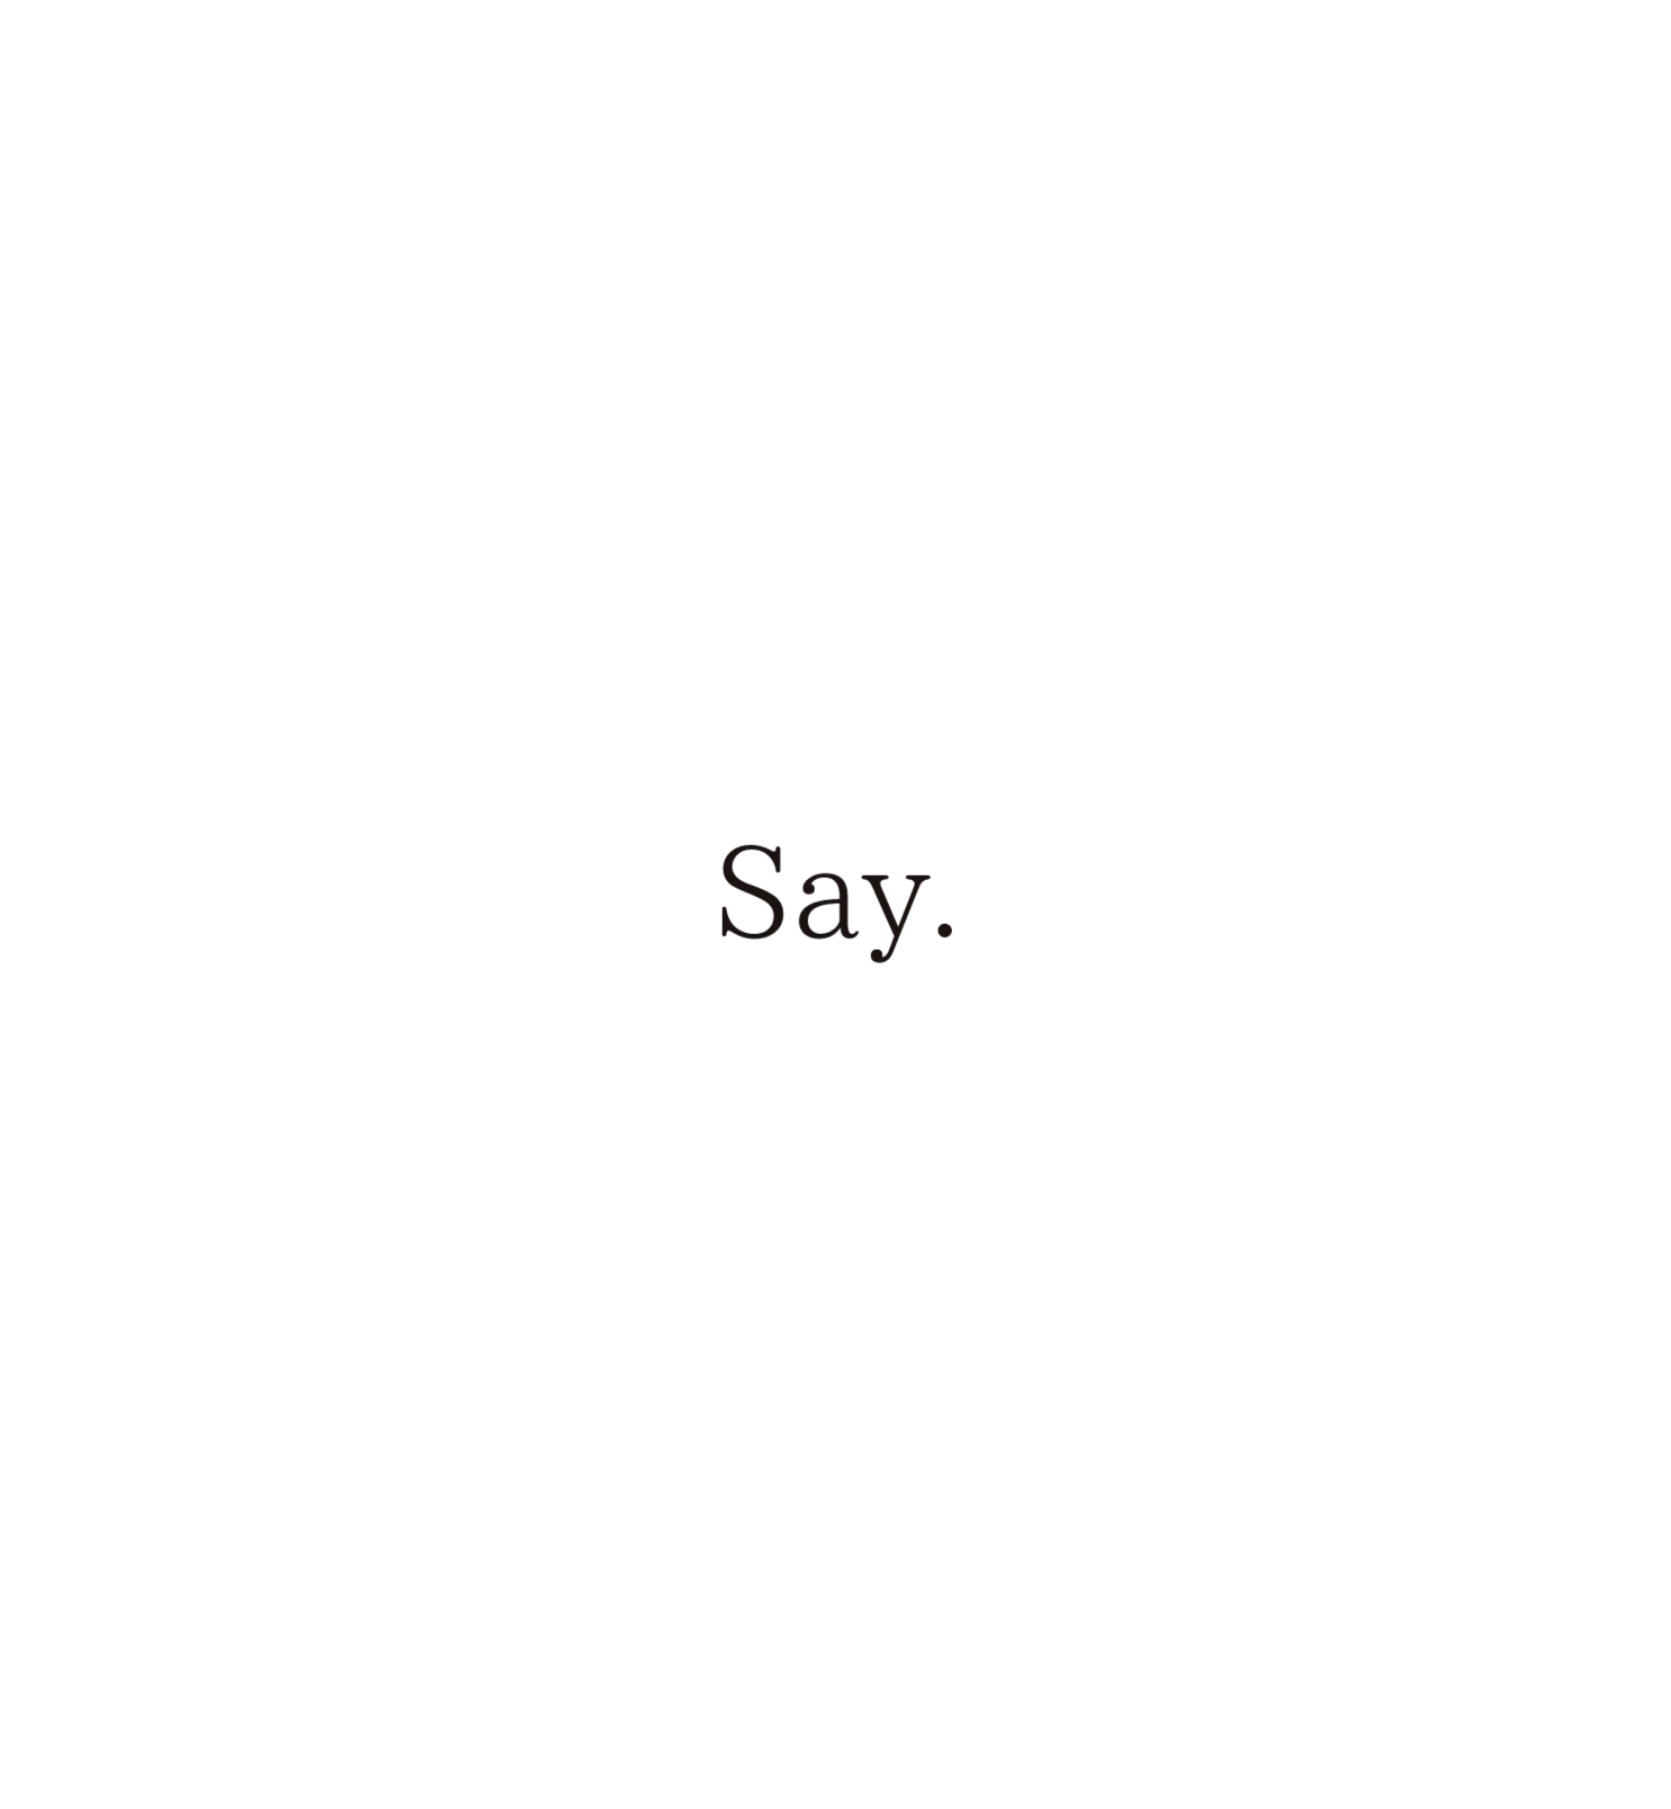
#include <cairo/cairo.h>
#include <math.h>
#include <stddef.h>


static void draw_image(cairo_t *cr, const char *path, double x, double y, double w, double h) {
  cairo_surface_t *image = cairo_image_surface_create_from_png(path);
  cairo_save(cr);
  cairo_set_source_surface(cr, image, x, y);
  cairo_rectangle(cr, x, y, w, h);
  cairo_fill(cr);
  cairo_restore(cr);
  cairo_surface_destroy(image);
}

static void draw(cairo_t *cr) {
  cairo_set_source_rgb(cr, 1, 1, 1);
  cairo_paint(cr);
  draw_image(cr, "images/1.png", 721, 844, 232, 120);
}

int main(void) {
  cairo_surface_t *surface = cairo_image_surface_create(CAIRO_FORMAT_RGB24, 1671, 1809);
  cairo_t *cr = cairo_create(surface);
  cairo_font_options_t *options = cairo_font_options_create();
  cairo_font_options_set_hint_metrics(options, CAIRO_HINT_METRICS_OFF);
  cairo_font_options_set_hint_style(options, CAIRO_HINT_STYLE_NONE);
  cairo_set_font_options(cr, options);
  cairo_set_miter_limit(cr, 4);
  draw(cr);
  cairo_surface_write_to_png(surface, "out.png");
  cairo_font_options_destroy(options);
  cairo_destroy(cr);
  cairo_surface_destroy(surface);
  return 0;
}
